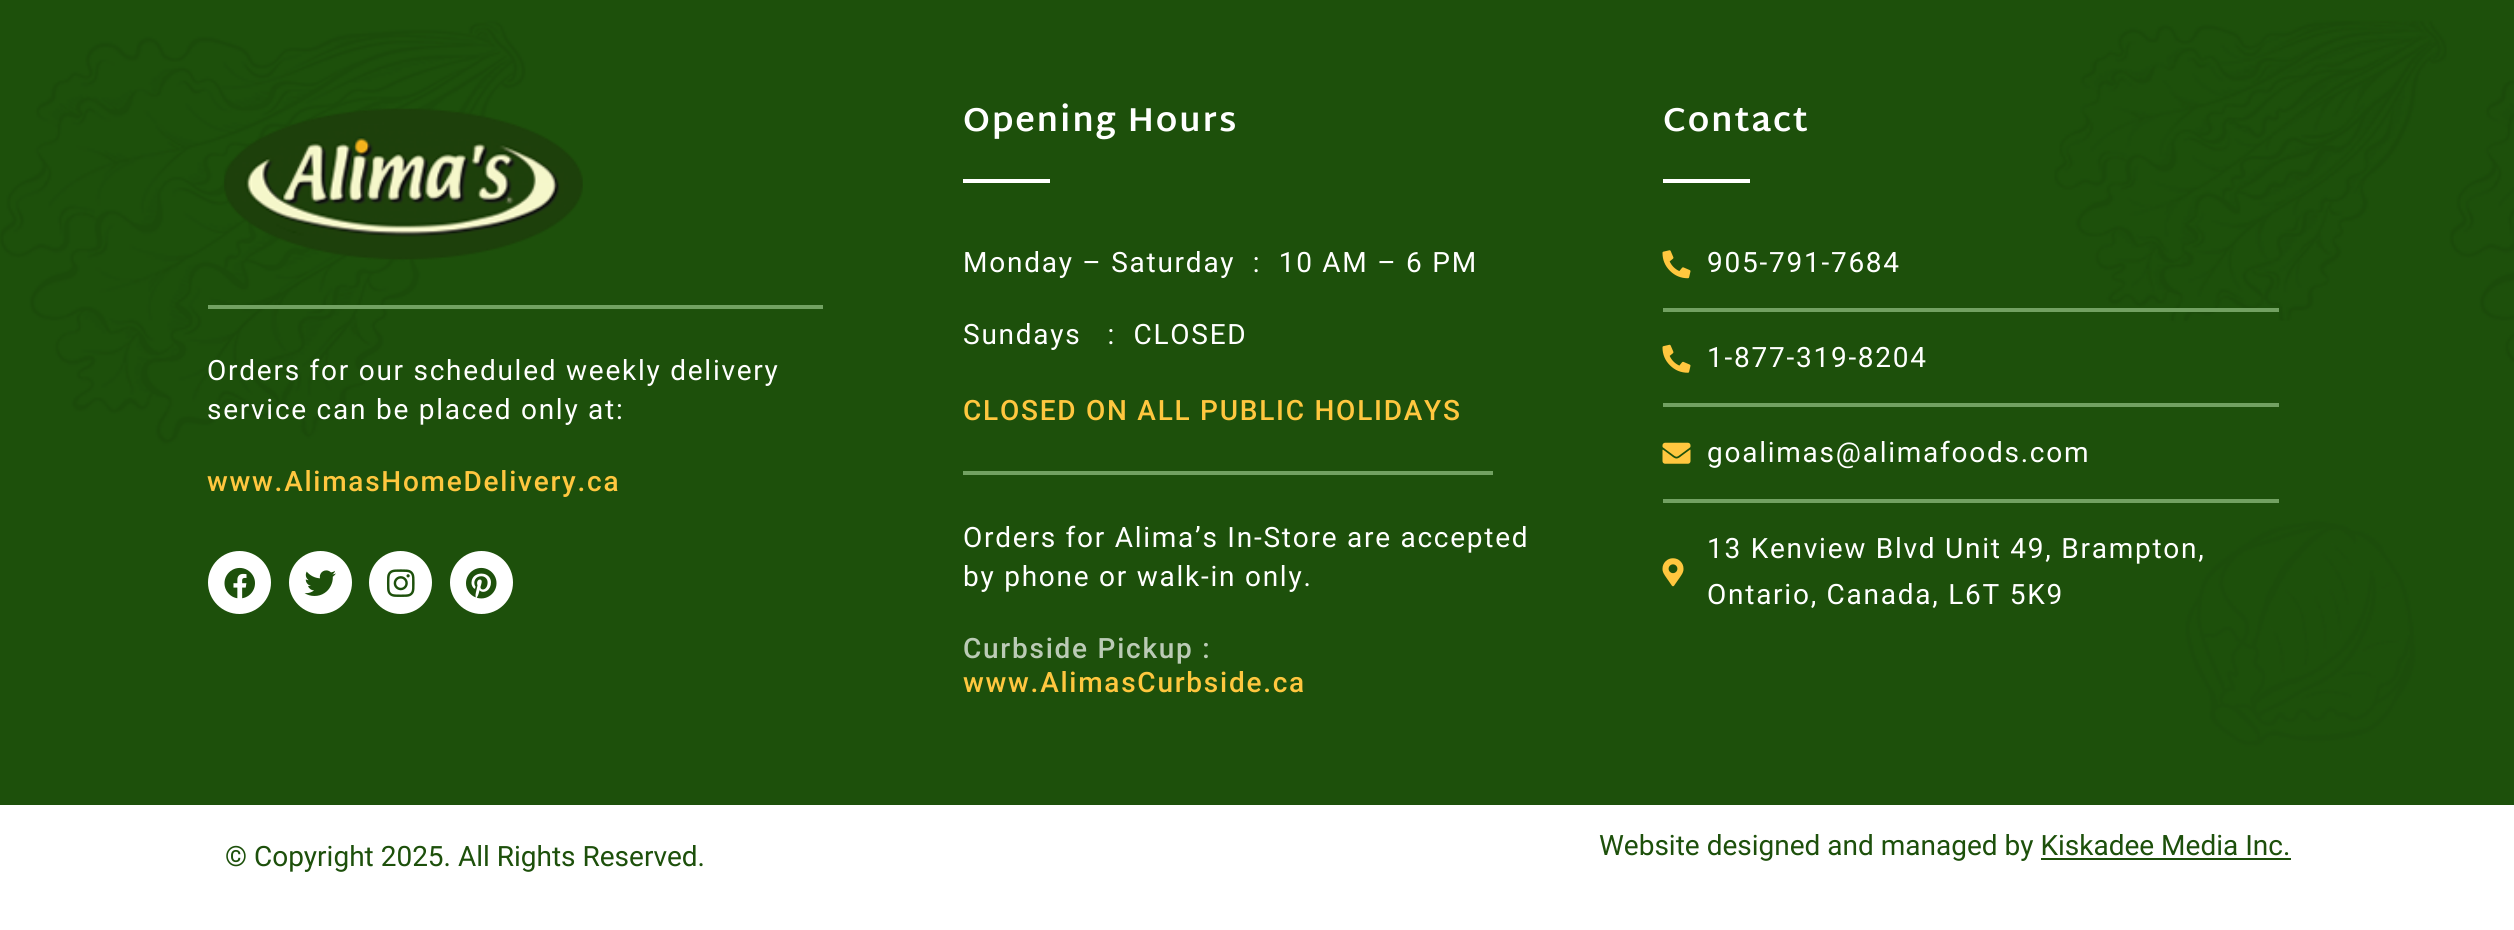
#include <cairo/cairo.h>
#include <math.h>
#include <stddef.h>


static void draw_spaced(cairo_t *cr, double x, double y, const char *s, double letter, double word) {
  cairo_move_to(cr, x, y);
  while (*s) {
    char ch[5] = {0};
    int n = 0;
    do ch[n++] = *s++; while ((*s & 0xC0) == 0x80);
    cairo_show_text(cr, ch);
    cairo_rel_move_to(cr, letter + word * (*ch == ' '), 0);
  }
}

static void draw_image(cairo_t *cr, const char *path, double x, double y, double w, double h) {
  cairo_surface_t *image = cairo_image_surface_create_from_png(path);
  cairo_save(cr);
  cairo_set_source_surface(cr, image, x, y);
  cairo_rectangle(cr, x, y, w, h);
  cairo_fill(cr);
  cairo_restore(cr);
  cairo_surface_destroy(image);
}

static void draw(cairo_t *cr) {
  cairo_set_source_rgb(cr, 1, 1, 1);
  cairo_paint(cr);
  draw_image(cr, "images/1.png", 0, 0, 2514, 805);
  draw_image(cr, "images/2.png", 224, 108, 359, 152);
  cairo_set_source_rgb(cr, 114 / 255.0, 161 / 255.0, 98 / 255.0);
  cairo_rectangle(cr, 208, 305, 615, 4);
  cairo_fill(cr);
  cairo_set_source_rgb(cr, 1, 1, 1);
  cairo_arc(cr, 239.5, 582.5, 31.5, 0, 2 * M_PI);
  cairo_fill(cr);
  draw_image(cr, "images/3.png", 224, 567, 31, 32);
  cairo_arc(cr, 320.5, 582.5, 31.5, 0, 2 * M_PI);
  cairo_fill(cr);
  draw_image(cr, "images/4.png", 304, 570, 32, 26);
  cairo_arc(cr, 400.5, 582.5, 31.5, 0, 2 * M_PI);
  cairo_fill(cr);
  draw_image(cr, "images/5.png", 386, 569, 29, 28);
  cairo_arc(cr, 481.5, 582.5, 31.5, 0, 2 * M_PI);
  cairo_fill(cr);
  draw_image(cr, "images/6.png", 466, 567, 31, 32);
  cairo_rectangle(cr, 963, 179, 87, 4);
  cairo_fill(cr);
  cairo_set_source_rgb(cr, 114 / 255.0, 161 / 255.0, 98 / 255.0);
  cairo_rectangle(cr, 963, 471, 530, 4);
  cairo_fill(cr);
  cairo_set_source_rgb(cr, 1, 1, 1);
  cairo_rectangle(cr, 1663, 179, 87, 4);
  cairo_fill(cr);
  draw_image(cr, "images/7.png", 1662, 250, 29, 29);
  cairo_set_source_rgb(cr, 114 / 255.0, 161 / 255.0, 98 / 255.0);
  cairo_rectangle(cr, 1663, 308, 616, 4);
  cairo_fill(cr);
  draw_image(cr, "images/8.png", 1662, 344, 29, 29);
  cairo_rectangle(cr, 1663, 403, 616, 4);
  cairo_fill(cr);
  draw_image(cr, "images/9.png", 1662, 442, 29, 22);
  cairo_rectangle(cr, 1663, 499, 616, 4);
  cairo_fill(cr);
  draw_image(cr, "images/10.png", 1662, 558, 22, 29);
  cairo_set_source_rgb(cr, 29 / 255.0, 80 / 255.0, 11 / 255.0);
  cairo_rectangle(cr, 2041, 858, 250, 2);
  cairo_fill(cr);
  cairo_select_font_face(cr, "Roboto", CAIRO_FONT_SLANT_NORMAL, CAIRO_FONT_WEIGHT_NORMAL);
  cairo_set_font_size(cr, 28);
  cairo_set_source_rgb(cr, 1, 1, 1);
  draw_spaced(cr, 207, 380, "Orders for our scheduled weekly delivery", 1.75, 0);
  draw_spaced(cr, 207, 419, "service can be placed only at:", 1.75, 0);
  cairo_select_font_face(cr, "Roboto Medium", CAIRO_FONT_SLANT_NORMAL, CAIRO_FONT_WEIGHT_NORMAL);
  cairo_set_source_rgb(cr, 1, 199 / 255.0, 63 / 255.0);
  draw_spaced(cr, 207, 491, "www.AlimasHomeDelivery.ca", 1.75, 0);
  cairo_select_font_face(cr, "Martel Sans", CAIRO_FONT_SLANT_NORMAL, CAIRO_FONT_WEIGHT_BOLD);
  cairo_set_font_size(cr, 33.5);
  cairo_set_source_rgb(cr, 1, 1, 1);
  draw_spaced(cr, 963, 131, "Opening Hours", 1.75, 0);
  cairo_select_font_face(cr, "Roboto", CAIRO_FONT_SLANT_NORMAL, CAIRO_FONT_WEIGHT_NORMAL);
  cairo_set_font_size(cr, 28);
  draw_spaced(cr, 963, 272, "Monday – Saturday  :  10 AM – 6 PM", 1.75, 0);
  draw_spaced(cr, 963, 344, "Sundays   :  CLOSED", 1.75, 0);
  cairo_select_font_face(cr, "Roboto Medium", CAIRO_FONT_SLANT_NORMAL, CAIRO_FONT_WEIGHT_NORMAL);
  cairo_set_source_rgb(cr, 1, 199 / 255.0, 63 / 255.0);
  draw_spaced(cr, 963, 420, "CLOSED ON ALL PUBLIC HOLIDAYS", 1.75, 0);
  cairo_select_font_face(cr, "Roboto", CAIRO_FONT_SLANT_NORMAL, CAIRO_FONT_WEIGHT_NORMAL);
  cairo_set_source_rgb(cr, 1, 1, 1);
  draw_spaced(cr, 963, 547, "Orders for Alima’s In-Store are accepted", 1.75, 0);
  draw_spaced(cr, 963, 586, "by phone or walk-in only.", 1.75, 0);
  cairo_select_font_face(cr, "Roboto Medium", CAIRO_FONT_SLANT_NORMAL, CAIRO_FONT_WEIGHT_NORMAL);
  cairo_set_source_rgb(cr, 187 / 255.0, 203 / 255.0, 182 / 255.0);
  draw_spaced(cr, 963, 658, "Curbside Pickup :", 1.75, 0);
  cairo_set_source_rgb(cr, 1, 199 / 255.0, 63 / 255.0);
  draw_spaced(cr, 963, 692, "www.AlimasCurbside.ca", 1.75, 0);
  cairo_select_font_face(cr, "Martel Sans", CAIRO_FONT_SLANT_NORMAL, CAIRO_FONT_WEIGHT_BOLD);
  cairo_set_font_size(cr, 33.5);
  cairo_set_source_rgb(cr, 1, 1, 1);
  draw_spaced(cr, 1663, 131, "Contact", 1.75, 0);
  cairo_select_font_face(cr, "Roboto", CAIRO_FONT_SLANT_NORMAL, CAIRO_FONT_WEIGHT_NORMAL);
  cairo_set_font_size(cr, 28);
  draw_spaced(cr, 1707, 272, "905-791-7684", 1.75, 0);
  draw_spaced(cr, 1707, 367, "1-877-319-8204", 1.75, 0);
  draw_spaced(cr, 1707, 462, "goalimas@alimafoods.com", 1.75, 0);
  draw_spaced(cr, 1707, 558, "13 Kenview Blvd Unit 49, Brampton,", 1.75, 0);
  draw_spaced(cr, 1707, 604, "Ontario, Canada, L6T 5K9", 1.75, 0);
  cairo_set_source_rgb(cr, 29 / 255.0, 80 / 255.0, 11 / 255.0);
  cairo_move_to(cr, 225, 866);
  cairo_show_text(cr, "© Copyright 2025. All Rights Reserved.");
  cairo_move_to(cr, 1599, 855);
  cairo_show_text(cr, "Website designed and managed by Kiskadee Media Inc.");
}

int main(void) {
  cairo_surface_t *surface = cairo_image_surface_create(CAIRO_FORMAT_RGB24, 2514, 930);
  cairo_t *cr = cairo_create(surface);
  cairo_font_options_t *options = cairo_font_options_create();
  cairo_font_options_set_hint_metrics(options, CAIRO_HINT_METRICS_OFF);
  cairo_font_options_set_hint_style(options, CAIRO_HINT_STYLE_NONE);
  cairo_set_font_options(cr, options);
  cairo_set_miter_limit(cr, 4);
  draw(cr);
  cairo_surface_write_to_png(surface, "out.png");
  cairo_font_options_destroy(options);
  cairo_destroy(cr);
  cairo_surface_destroy(surface);
  return 0;
}
